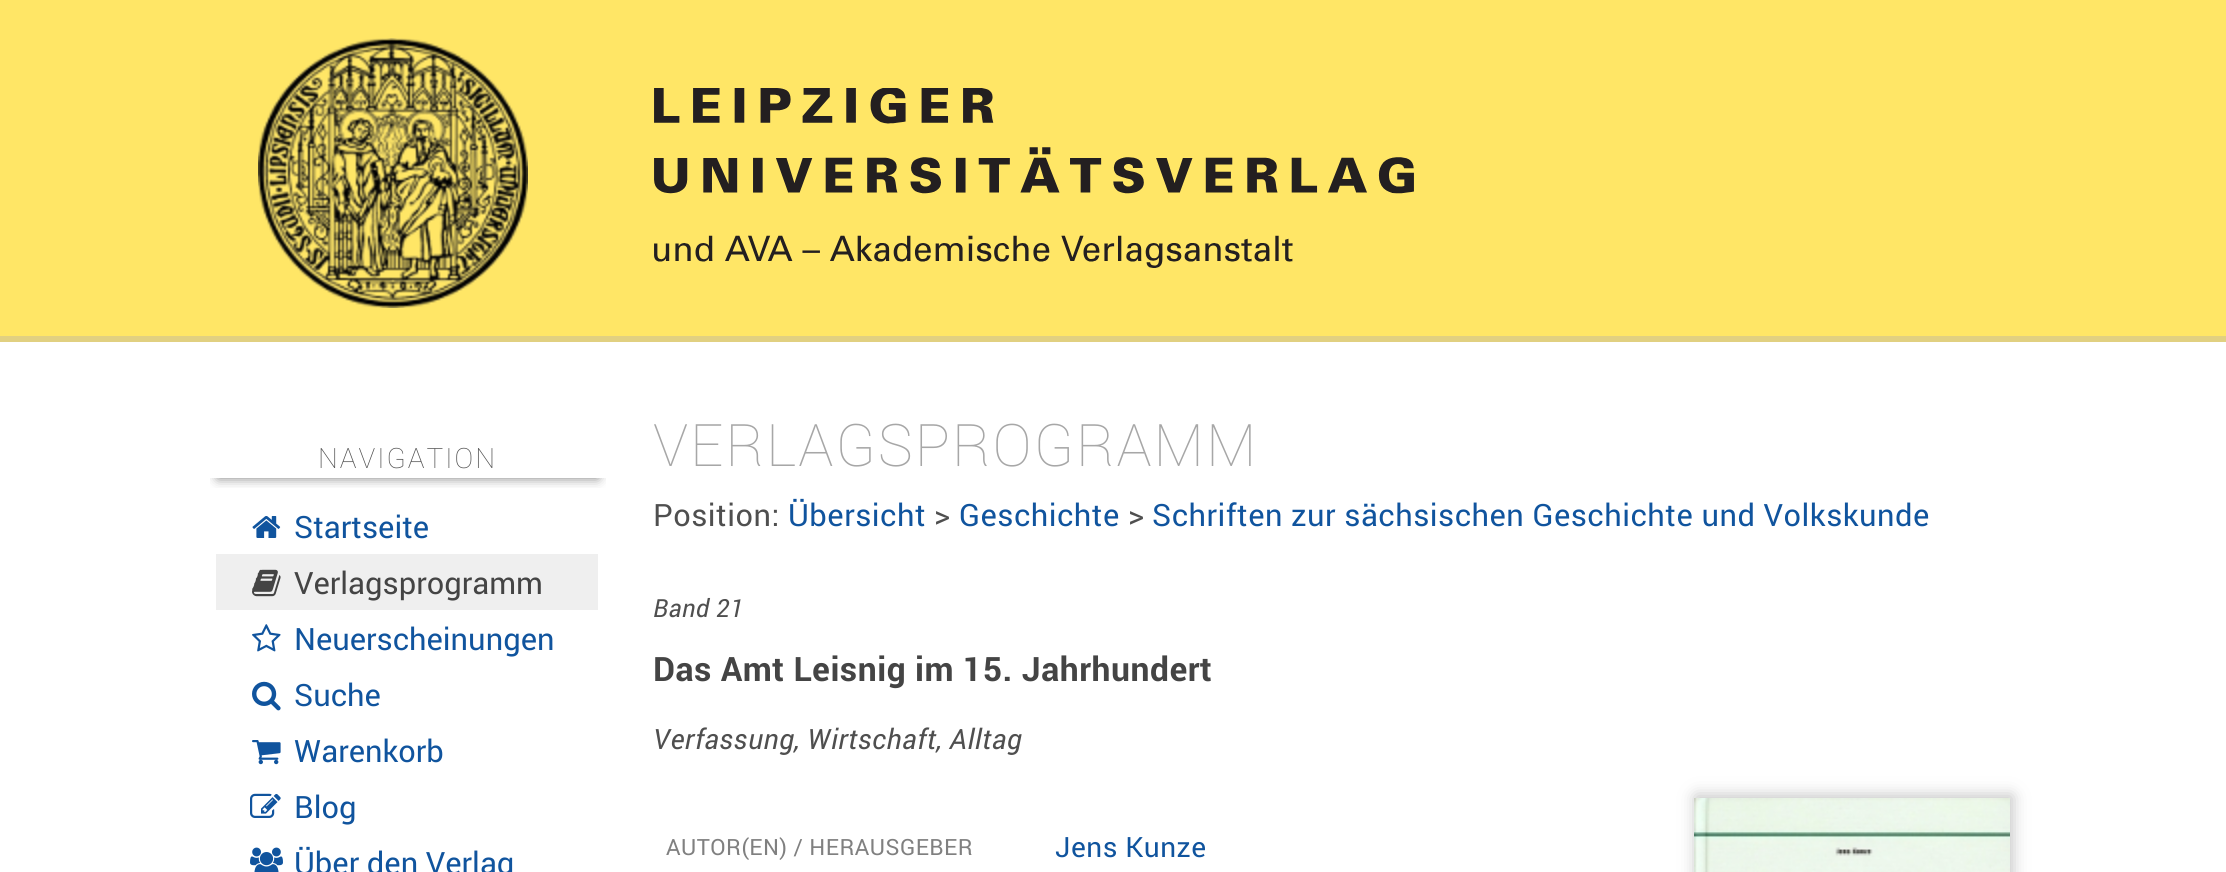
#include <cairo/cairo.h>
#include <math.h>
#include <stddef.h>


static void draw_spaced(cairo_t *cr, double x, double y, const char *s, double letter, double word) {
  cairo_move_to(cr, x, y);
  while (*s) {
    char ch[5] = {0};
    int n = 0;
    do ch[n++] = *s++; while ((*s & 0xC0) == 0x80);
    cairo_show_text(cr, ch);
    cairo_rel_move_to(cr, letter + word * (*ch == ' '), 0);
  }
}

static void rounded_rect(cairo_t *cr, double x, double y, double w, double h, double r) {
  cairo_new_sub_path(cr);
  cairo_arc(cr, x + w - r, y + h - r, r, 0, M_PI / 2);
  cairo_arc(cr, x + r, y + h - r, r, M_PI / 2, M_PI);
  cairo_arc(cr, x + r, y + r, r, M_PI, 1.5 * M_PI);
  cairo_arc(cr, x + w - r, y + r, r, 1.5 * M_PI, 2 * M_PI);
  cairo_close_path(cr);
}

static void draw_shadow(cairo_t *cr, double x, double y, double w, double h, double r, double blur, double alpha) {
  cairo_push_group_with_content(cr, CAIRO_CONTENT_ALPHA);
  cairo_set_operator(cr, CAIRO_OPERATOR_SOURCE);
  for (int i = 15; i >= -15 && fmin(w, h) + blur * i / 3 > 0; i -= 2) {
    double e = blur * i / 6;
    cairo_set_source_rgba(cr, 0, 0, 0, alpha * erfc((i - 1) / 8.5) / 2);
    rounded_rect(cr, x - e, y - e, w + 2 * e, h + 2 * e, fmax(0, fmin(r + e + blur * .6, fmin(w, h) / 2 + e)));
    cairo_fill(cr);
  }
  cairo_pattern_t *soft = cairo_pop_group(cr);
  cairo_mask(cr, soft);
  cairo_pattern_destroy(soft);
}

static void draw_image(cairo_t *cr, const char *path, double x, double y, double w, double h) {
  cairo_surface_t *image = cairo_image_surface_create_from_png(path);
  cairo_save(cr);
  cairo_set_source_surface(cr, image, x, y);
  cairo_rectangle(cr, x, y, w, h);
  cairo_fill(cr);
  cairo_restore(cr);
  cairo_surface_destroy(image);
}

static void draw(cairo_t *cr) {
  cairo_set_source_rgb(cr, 1, 230 / 255.0, 102 / 255.0);
  cairo_paint(cr);
  cairo_set_source_rgb(cr, 225 / 255.0, 208 / 255.0, 129 / 255.0);
  cairo_rectangle(cr, 0, 336, 2226, 6);
  cairo_fill(cr);
  draw_image(cr, "images/1.png", 258, 38, 270, 270);
  draw_image(cr, "images/2.png", 654, 88, 760, 180);
  cairo_set_source_rgb(cr, 1, 1, 1);
  cairo_rectangle(cr, 0, 342, 2226, 530);
  cairo_fill(cr);
  cairo_save(cr);
  cairo_rectangle(cr, 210, 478, 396, 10);
  cairo_clip(cr);
  cairo_set_source_rgb(cr, 0, 0, 0);
  draw_shadow(cr, 218, 470, 380, 8, 0, 6, 0.5);
  cairo_restore(cr);
  draw_image(cr, "images/3.png", 252, 516, 29, 22);
  cairo_set_source_rgb(cr, 239 / 255.0, 239 / 255.0, 239 / 255.0);
  cairo_rectangle(cr, 216, 554, 382, 56);
  cairo_fill(cr);
  draw_image(cr, "images/4.png", 252, 569, 29, 28);
  draw_image(cr, "images/5.png", 252, 624, 29, 28);
  draw_image(cr, "images/6.png", 252, 681, 29, 30);
  draw_image(cr, "images/7.png", 252, 740, 29, 25);
  draw_image(cr, "images/8.png", 250, 793, 31, 25);
  draw_image(cr, "images/9.png", 250, 847, 33, 25);
  cairo_set_source_rgb(cr, 127 / 255.0, 127 / 255.0, 127 / 255.0);
  draw_shadow(cr, 1696, 796, 316, 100, 0, 8, 0.5);
  draw_image(cr, "images/10.png", 1694, 798, 316, 74);
  cairo_select_font_face(cr, "Roboto ExtraLight", CAIRO_FONT_SLANT_NORMAL, CAIRO_FONT_WEIGHT_NORMAL);
  cairo_set_font_size(cr, 28);
  cairo_set_source_rgb(cr, 79 / 255.0, 79 / 255.0, 79 / 255.0);
  draw_spaced(cr, 318, 468, "NAVIGATION", 2, 0);
  cairo_select_font_face(cr, "Roboto", CAIRO_FONT_SLANT_NORMAL, CAIRO_FONT_WEIGHT_NORMAL);
  cairo_set_font_size(cr, 30.8);
  cairo_set_source_rgb(cr, 16 / 255.0, 84 / 255.0, 158 / 255.0);
  cairo_move_to(cr, 294, 538);
  cairo_show_text(cr, "Startseite");
  cairo_set_source_rgb(cr, 68 / 255.0, 68 / 255.0, 68 / 255.0);
  cairo_move_to(cr, 294, 594);
  cairo_show_text(cr, "Verlagsprogramm");
  cairo_set_source_rgb(cr, 16 / 255.0, 84 / 255.0, 158 / 255.0);
  cairo_move_to(cr, 294, 650);
  cairo_show_text(cr, "Neuerscheinungen");
  cairo_move_to(cr, 294, 706);
  cairo_show_text(cr, "Suche");
  cairo_move_to(cr, 294, 762);
  cairo_show_text(cr, "Warenkorb");
  cairo_move_to(cr, 294, 818);
  cairo_show_text(cr, "Blog");
  cairo_move_to(cr, 294, 874);
  cairo_show_text(cr, "Über den Verlag");
  cairo_select_font_face(cr, "Roboto ExtraLight", CAIRO_FONT_SLANT_NORMAL, CAIRO_FONT_WEIGHT_NORMAL);
  cairo_set_font_size(cr, 58.75);
  cairo_set_source_rgb(cr, 167 / 255.0, 167 / 255.0, 167 / 255.0);
  draw_spaced(cr, 653, 466, "VERLAGSPROGRAMM", 2, 0);
  cairo_select_font_face(cr, "Roboto", CAIRO_FONT_SLANT_NORMAL, CAIRO_FONT_WEIGHT_NORMAL);
  cairo_set_font_size(cr, 30.8);
  cairo_set_source_rgb(cr, 79 / 255.0, 79 / 255.0, 79 / 255.0);
  draw_spaced(cr, 653, 526, "Position:", 0.5, 0);
  cairo_set_source_rgb(cr, 16 / 255.0, 84 / 255.0, 158 / 255.0);
  draw_spaced(cr, 788, 526, "Übersicht", 0.5, 0);
  cairo_set_source_rgb(cr, 79 / 255.0, 79 / 255.0, 79 / 255.0);
  draw_spaced(cr, 934, 526, ">", 0.5, 0);
  cairo_set_source_rgb(cr, 16 / 255.0, 84 / 255.0, 158 / 255.0);
  draw_spaced(cr, 959, 526, "Geschichte", 0.5, 0);
  cairo_set_source_rgb(cr, 79 / 255.0, 79 / 255.0, 79 / 255.0);
  draw_spaced(cr, 1128, 526, ">", 0.5, 0);
  cairo_set_source_rgb(cr, 16 / 255.0, 84 / 255.0, 158 / 255.0);
  draw_spaced(cr, 1152, 526, "Schriften zur sächsischen Geschichte und Volkskunde", 0.5, 0);
  cairo_select_font_face(cr, "Roboto", CAIRO_FONT_SLANT_ITALIC, CAIRO_FONT_WEIGHT_NORMAL);
  cairo_set_font_size(cr, 25);
  cairo_set_source_rgb(cr, 79 / 255.0, 79 / 255.0, 79 / 255.0);
  draw_spaced(cr, 653, 617, "Band 21", 0.5, 0);
  cairo_select_font_face(cr, "Roboto", CAIRO_FONT_SLANT_NORMAL, CAIRO_FONT_WEIGHT_BOLD);
  cairo_set_font_size(cr, 33.6);
  cairo_set_source_rgb(cr, 68 / 255.0, 68 / 255.0, 68 / 255.0);
  draw_spaced(cr, 653, 681, "Das Amt Leisnig im 15. Jahrhundert", 0.5, 0);
  cairo_select_font_face(cr, "Roboto", CAIRO_FONT_SLANT_ITALIC, CAIRO_FONT_WEIGHT_NORMAL);
  cairo_set_font_size(cr, 28);
  cairo_set_source_rgb(cr, 79 / 255.0, 79 / 255.0, 79 / 255.0);
  draw_spaced(cr, 653, 749, "Verfassung, Wirtschaft, Alltag", 0.5, 0);
  cairo_select_font_face(cr, "Roboto", CAIRO_FONT_SLANT_NORMAL, CAIRO_FONT_WEIGHT_NORMAL);
  cairo_set_font_size(cr, 22.4);
  cairo_set_source_rgb(cr, 128 / 255.0, 128 / 255.0, 128 / 255.0);
  draw_spaced(cr, 666, 855, "AUTOR(EN) / HERAUSGEBER", 0.5, 0);
  cairo_set_font_size(cr, 28);
  cairo_set_source_rgb(cr, 16 / 255.0, 84 / 255.0, 158 / 255.0);
  draw_spaced(cr, 1055, 857, "Jens Kunze", 0.5, 0);
}

int main(void) {
  cairo_surface_t *surface = cairo_image_surface_create(CAIRO_FORMAT_RGB24, 2226, 872);
  cairo_t *cr = cairo_create(surface);
  cairo_font_options_t *options = cairo_font_options_create();
  cairo_font_options_set_hint_metrics(options, CAIRO_HINT_METRICS_OFF);
  cairo_font_options_set_hint_style(options, CAIRO_HINT_STYLE_NONE);
  cairo_set_font_options(cr, options);
  cairo_set_miter_limit(cr, 4);
  draw(cr);
  cairo_surface_write_to_png(surface, "out.png");
  cairo_font_options_destroy(options);
  cairo_destroy(cr);
  cairo_surface_destroy(surface);
  return 0;
}
